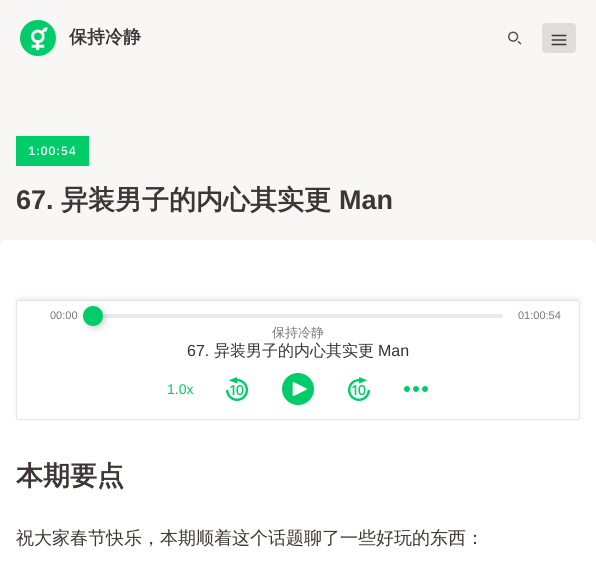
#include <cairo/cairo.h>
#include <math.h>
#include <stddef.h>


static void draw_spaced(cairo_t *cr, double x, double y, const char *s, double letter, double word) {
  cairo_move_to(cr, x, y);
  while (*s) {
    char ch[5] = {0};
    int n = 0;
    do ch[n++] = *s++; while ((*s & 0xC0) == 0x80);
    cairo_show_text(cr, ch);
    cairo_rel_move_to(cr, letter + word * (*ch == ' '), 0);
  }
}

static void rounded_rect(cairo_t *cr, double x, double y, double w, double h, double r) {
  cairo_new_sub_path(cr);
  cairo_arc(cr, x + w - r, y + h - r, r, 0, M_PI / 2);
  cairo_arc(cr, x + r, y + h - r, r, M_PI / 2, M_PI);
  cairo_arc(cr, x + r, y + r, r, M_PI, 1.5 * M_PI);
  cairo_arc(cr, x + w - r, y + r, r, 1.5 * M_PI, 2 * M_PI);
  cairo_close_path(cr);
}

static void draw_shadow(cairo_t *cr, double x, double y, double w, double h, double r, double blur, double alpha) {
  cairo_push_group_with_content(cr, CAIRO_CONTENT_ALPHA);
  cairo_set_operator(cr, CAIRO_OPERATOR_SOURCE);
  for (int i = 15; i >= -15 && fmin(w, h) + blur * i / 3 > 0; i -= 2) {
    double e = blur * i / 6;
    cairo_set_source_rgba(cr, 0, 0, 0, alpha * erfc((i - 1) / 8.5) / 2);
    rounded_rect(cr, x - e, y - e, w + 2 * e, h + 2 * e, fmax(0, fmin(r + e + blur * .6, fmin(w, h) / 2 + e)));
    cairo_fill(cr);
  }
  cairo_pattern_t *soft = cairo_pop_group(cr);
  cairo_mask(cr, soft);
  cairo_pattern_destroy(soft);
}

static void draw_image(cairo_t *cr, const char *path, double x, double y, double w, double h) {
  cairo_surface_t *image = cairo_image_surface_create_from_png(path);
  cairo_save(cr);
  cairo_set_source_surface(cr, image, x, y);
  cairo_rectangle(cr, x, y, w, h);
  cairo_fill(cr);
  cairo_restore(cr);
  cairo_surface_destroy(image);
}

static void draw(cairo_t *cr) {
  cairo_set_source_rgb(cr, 248 / 255.0, 247 / 255.0, 246 / 255.0);
  cairo_paint(cr);
  draw_image(cr, "images/1.png", 20, 20, 36, 36);
  draw_image(cr, "images/2.png", 508, 31, 14, 14);
  cairo_set_source_rgb(cr, 223 / 255.0, 222 / 255.0, 221 / 255.0);
  rounded_rect(cr, 542, 23, 34, 30, 4);
  cairo_fill(cr);
  draw_image(cr, "images/3.png", 551, 34, 16, 12);
  cairo_set_source_rgb(cr, 0, 204 / 255.0, 105 / 255.0);
  cairo_rectangle(cr, 16, 136, 73, 30);
  cairo_fill(cr);
  cairo_set_source_rgb(cr, 1, 1, 1);
  rounded_rect(cr, 0, 240, 596, 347, 8);
  cairo_fill(cr);
  cairo_save(cr);
  cairo_set_fill_rule(cr, CAIRO_FILL_RULE_EVEN_ODD);
  cairo_new_path(cr);
  cairo_move_to(cr, 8, 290);
  cairo_line_to(cr, 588, 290);
  cairo_line_to(cr, 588, 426);
  cairo_line_to(cr, 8, 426);
  cairo_close_path(cr);
  cairo_move_to(cr, 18, 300);
  cairo_line_to(cr, 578, 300);
  cairo_curve_to(cr, 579, 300, 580, 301, 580, 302);
  cairo_line_to(cr, 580, 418);
  cairo_curve_to(cr, 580, 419, 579, 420, 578, 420);
  cairo_line_to(cr, 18, 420);
  cairo_curve_to(cr, 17, 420, 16, 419, 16, 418);
  cairo_line_to(cr, 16, 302);
  cairo_curve_to(cr, 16, 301, 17, 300, 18, 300);
  cairo_close_path(cr);
  cairo_clip(cr);
  cairo_set_source_rgb(cr, 185 / 255.0, 182 / 255.0, 182 / 255.0);
  draw_shadow(cr, 18, 300, 560, 116, 0, 3, 0.5);
  cairo_restore(cr);
  rounded_rect(cr, 16.5, 300.5, 563, 119, 1.5);
  cairo_set_source_rgb(cr, 229 / 255.0, 229 / 255.0, 229 / 255.0);
  cairo_set_line_width(cr, 1);
  cairo_stroke(cr);
  cairo_set_source_rgb(cr, 234 / 255.0, 234 / 255.0, 234 / 255.0);
  rounded_rect(cr, 93, 314, 410, 4, 2);
  cairo_fill(cr);
  cairo_set_source_rgb(cr, 185 / 255.0, 182 / 255.0, 182 / 255.0);
  draw_shadow(cr, 87, 310, 16, 16, 8, 4, 1);
  cairo_set_source_rgb(cr, 0, 204 / 255.0, 105 / 255.0);
  cairo_arc(cr, 93, 316, 10, 0, 2 * M_PI);
  cairo_fill(cr);
  draw_image(cr, "images/4.png", 226, 377, 22, 24);
  draw_image(cr, "images/5.png", 282, 373, 32, 32);
  draw_image(cr, "images/6.png", 348, 377, 22, 24);
  draw_image(cr, "images/7.png", 404, 386, 24, 6);
  cairo_select_font_face(cr, "WenQuanYi Zen Hei", CAIRO_FONT_SLANT_NORMAL, CAIRO_FONT_WEIGHT_BOLD);
  cairo_set_font_size(cr, 18);
  cairo_set_source_rgb(cr, 61 / 255.0, 54 / 255.0, 52 / 255.0);
  cairo_move_to(cr, 69, 43);
  cairo_show_text(cr, "保持冷静");
  cairo_select_font_face(cr, "IBM Plex Sans Medium", CAIRO_FONT_SLANT_NORMAL, CAIRO_FONT_WEIGHT_NORMAL);
  cairo_set_font_size(cr, 12);
  cairo_set_source_rgb(cr, 1, 1, 1);
  draw_spaced(cr, 28, 155, "1:00:54", 0.75, 0);
  cairo_select_font_face(cr, "Liberation Sans", CAIRO_FONT_SLANT_NORMAL, CAIRO_FONT_WEIGHT_BOLD);
  cairo_set_font_size(cr, 27);
  cairo_set_source_rgb(cr, 61 / 255.0, 54 / 255.0, 52 / 255.0);
  cairo_move_to(cr, 16, 209);
  cairo_show_text(cr, "67.");
  cairo_select_font_face(cr, "WenQuanYi Zen Hei", CAIRO_FONT_SLANT_NORMAL, CAIRO_FONT_WEIGHT_BOLD);
  cairo_move_to(cr, 61, 209);
  cairo_show_text(cr, "异装男子的内心其实更");
  cairo_select_font_face(cr, "Liberation Sans", CAIRO_FONT_SLANT_NORMAL, CAIRO_FONT_WEIGHT_BOLD);
  cairo_move_to(cr, 339, 209);
  cairo_show_text(cr, "Man");
  cairo_select_font_face(cr, "Liberation Sans", CAIRO_FONT_SLANT_NORMAL, CAIRO_FONT_WEIGHT_NORMAL);
  cairo_set_font_size(cr, 11);
  cairo_set_source_rgb(cr, 118 / 255.0, 118 / 255.0, 118 / 255.0);
  cairo_move_to(cr, 50, 319);
  cairo_show_text(cr, "00:00");
  cairo_move_to(cr, 518, 319);
  cairo_show_text(cr, "01:00:54");
  cairo_select_font_face(cr, "WenQuanYi Zen Hei Medium", CAIRO_FONT_SLANT_NORMAL, CAIRO_FONT_WEIGHT_NORMAL);
  cairo_set_font_size(cr, 13);
  cairo_move_to(cr, 272, 337);
  cairo_show_text(cr, "保持冷静");
  cairo_select_font_face(cr, "Liberation Sans", CAIRO_FONT_SLANT_NORMAL, CAIRO_FONT_WEIGHT_NORMAL);
  cairo_set_font_size(cr, 16);
  cairo_set_source_rgb(cr, 51 / 255.0, 51 / 255.0, 51 / 255.0);
  cairo_move_to(cr, 187, 356);
  cairo_show_text(cr, "67.");
  cairo_select_font_face(cr, "WenQuanYi Zen Hei Medium", CAIRO_FONT_SLANT_NORMAL, CAIRO_FONT_WEIGHT_NORMAL);
  cairo_move_to(cr, 214, 356);
  cairo_show_text(cr, "异装男子的内心其实更");
  cairo_select_font_face(cr, "Liberation Sans", CAIRO_FONT_SLANT_NORMAL, CAIRO_FONT_WEIGHT_NORMAL);
  cairo_move_to(cr, 378, 356);
  cairo_show_text(cr, "Man");
  cairo_set_font_size(cr, 14);
  cairo_set_source_rgb(cr, 0, 204 / 255.0, 105 / 255.0);
  cairo_move_to(cr, 167, 394);
  cairo_show_text(cr, "1.0x");
  cairo_select_font_face(cr, "WenQuanYi Zen Hei", CAIRO_FONT_SLANT_NORMAL, CAIRO_FONT_WEIGHT_BOLD);
  cairo_set_font_size(cr, 27);
  cairo_set_source_rgb(cr, 61 / 255.0, 54 / 255.0, 52 / 255.0);
  cairo_move_to(cr, 16, 485);
  cairo_show_text(cr, "本期要点");
  cairo_select_font_face(cr, "WenQuanYi Zen Hei Medium", CAIRO_FONT_SLANT_NORMAL, CAIRO_FONT_WEIGHT_NORMAL);
  cairo_set_font_size(cr, 18);
  cairo_move_to(cr, 16, 544);
  cairo_show_text(cr, "祝大家春节快乐，本期顺着这个话题聊了一些好玩的东西：");
}

int main(void) {
  cairo_surface_t *surface = cairo_image_surface_create(CAIRO_FORMAT_RGB24, 596, 579);
  cairo_t *cr = cairo_create(surface);
  cairo_font_options_t *options = cairo_font_options_create();
  cairo_font_options_set_hint_metrics(options, CAIRO_HINT_METRICS_OFF);
  cairo_font_options_set_hint_style(options, CAIRO_HINT_STYLE_NONE);
  cairo_set_font_options(cr, options);
  cairo_set_miter_limit(cr, 4);
  draw(cr);
  cairo_surface_write_to_png(surface, "out.png");
  cairo_font_options_destroy(options);
  cairo_destroy(cr);
  cairo_surface_destroy(surface);
  return 0;
}
